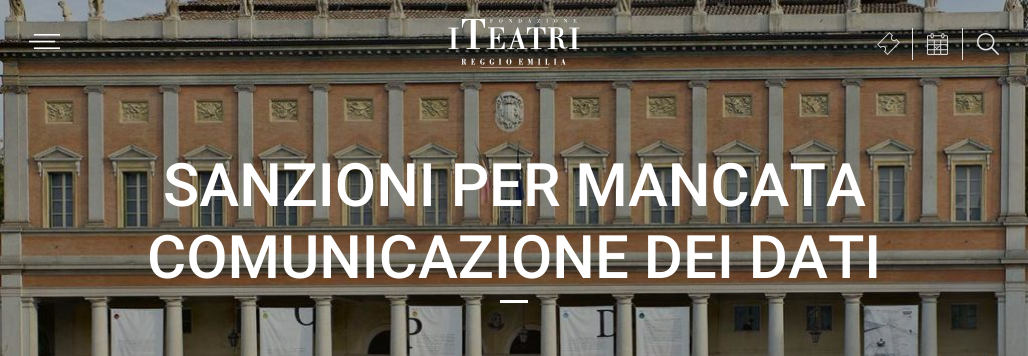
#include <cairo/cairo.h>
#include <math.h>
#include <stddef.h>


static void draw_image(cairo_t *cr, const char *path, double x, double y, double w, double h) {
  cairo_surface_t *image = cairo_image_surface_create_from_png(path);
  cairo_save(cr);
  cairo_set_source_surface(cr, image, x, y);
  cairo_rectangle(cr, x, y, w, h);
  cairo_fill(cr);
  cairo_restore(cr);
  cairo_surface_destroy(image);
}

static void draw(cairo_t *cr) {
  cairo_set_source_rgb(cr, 1, 1, 1);
  cairo_paint(cr);
  draw_image(cr, "images/6.png", 0, 0, 1028, 356);
  draw_image(cr, "images/1.png", 29, 34, 31, 15);
  draw_image(cr, "images/2.png", 448, 19, 132, 49);
  cairo_set_source_rgb(cr, 225 / 255.0, 225 / 255.0, 225 / 255.0);
  cairo_rectangle(cr, 912, 28, 1, 32);
  cairo_fill(cr);
  draw_image(cr, "images/3.png", 877, 32, 23, 23);
  cairo_rectangle(cr, 962, 28, 1, 32);
  cairo_fill(cr);
  draw_image(cr, "images/4.png", 927, 33, 21, 22);
  draw_image(cr, "images/5.png", 977, 33, 22, 22);
  cairo_set_source_rgb(cr, 1, 1, 1);
  cairo_rectangle(cr, 500, 300, 28, 3);
  cairo_fill(cr);
  cairo_select_font_face(cr, "Roboto Medium", CAIRO_FONT_SLANT_NORMAL, CAIRO_FONT_WEIGHT_NORMAL);
  cairo_set_font_size(cr, 60);
  cairo_move_to(cr, 163, 206);
  cairo_show_text(cr, "SANZIONI PER MANCATA");
  cairo_move_to(cr, 147, 278);
  cairo_show_text(cr, "COMUNICAZIONE DEI DATI");
}

int main(void) {
  cairo_surface_t *surface = cairo_image_surface_create(CAIRO_FORMAT_RGB24, 1028, 356);
  cairo_t *cr = cairo_create(surface);
  cairo_font_options_t *options = cairo_font_options_create();
  cairo_font_options_set_hint_metrics(options, CAIRO_HINT_METRICS_OFF);
  cairo_font_options_set_hint_style(options, CAIRO_HINT_STYLE_NONE);
  cairo_set_font_options(cr, options);
  cairo_set_miter_limit(cr, 4);
  draw(cr);
  cairo_surface_write_to_png(surface, "out.png");
  cairo_font_options_destroy(options);
  cairo_destroy(cr);
  cairo_surface_destroy(surface);
  return 0;
}
